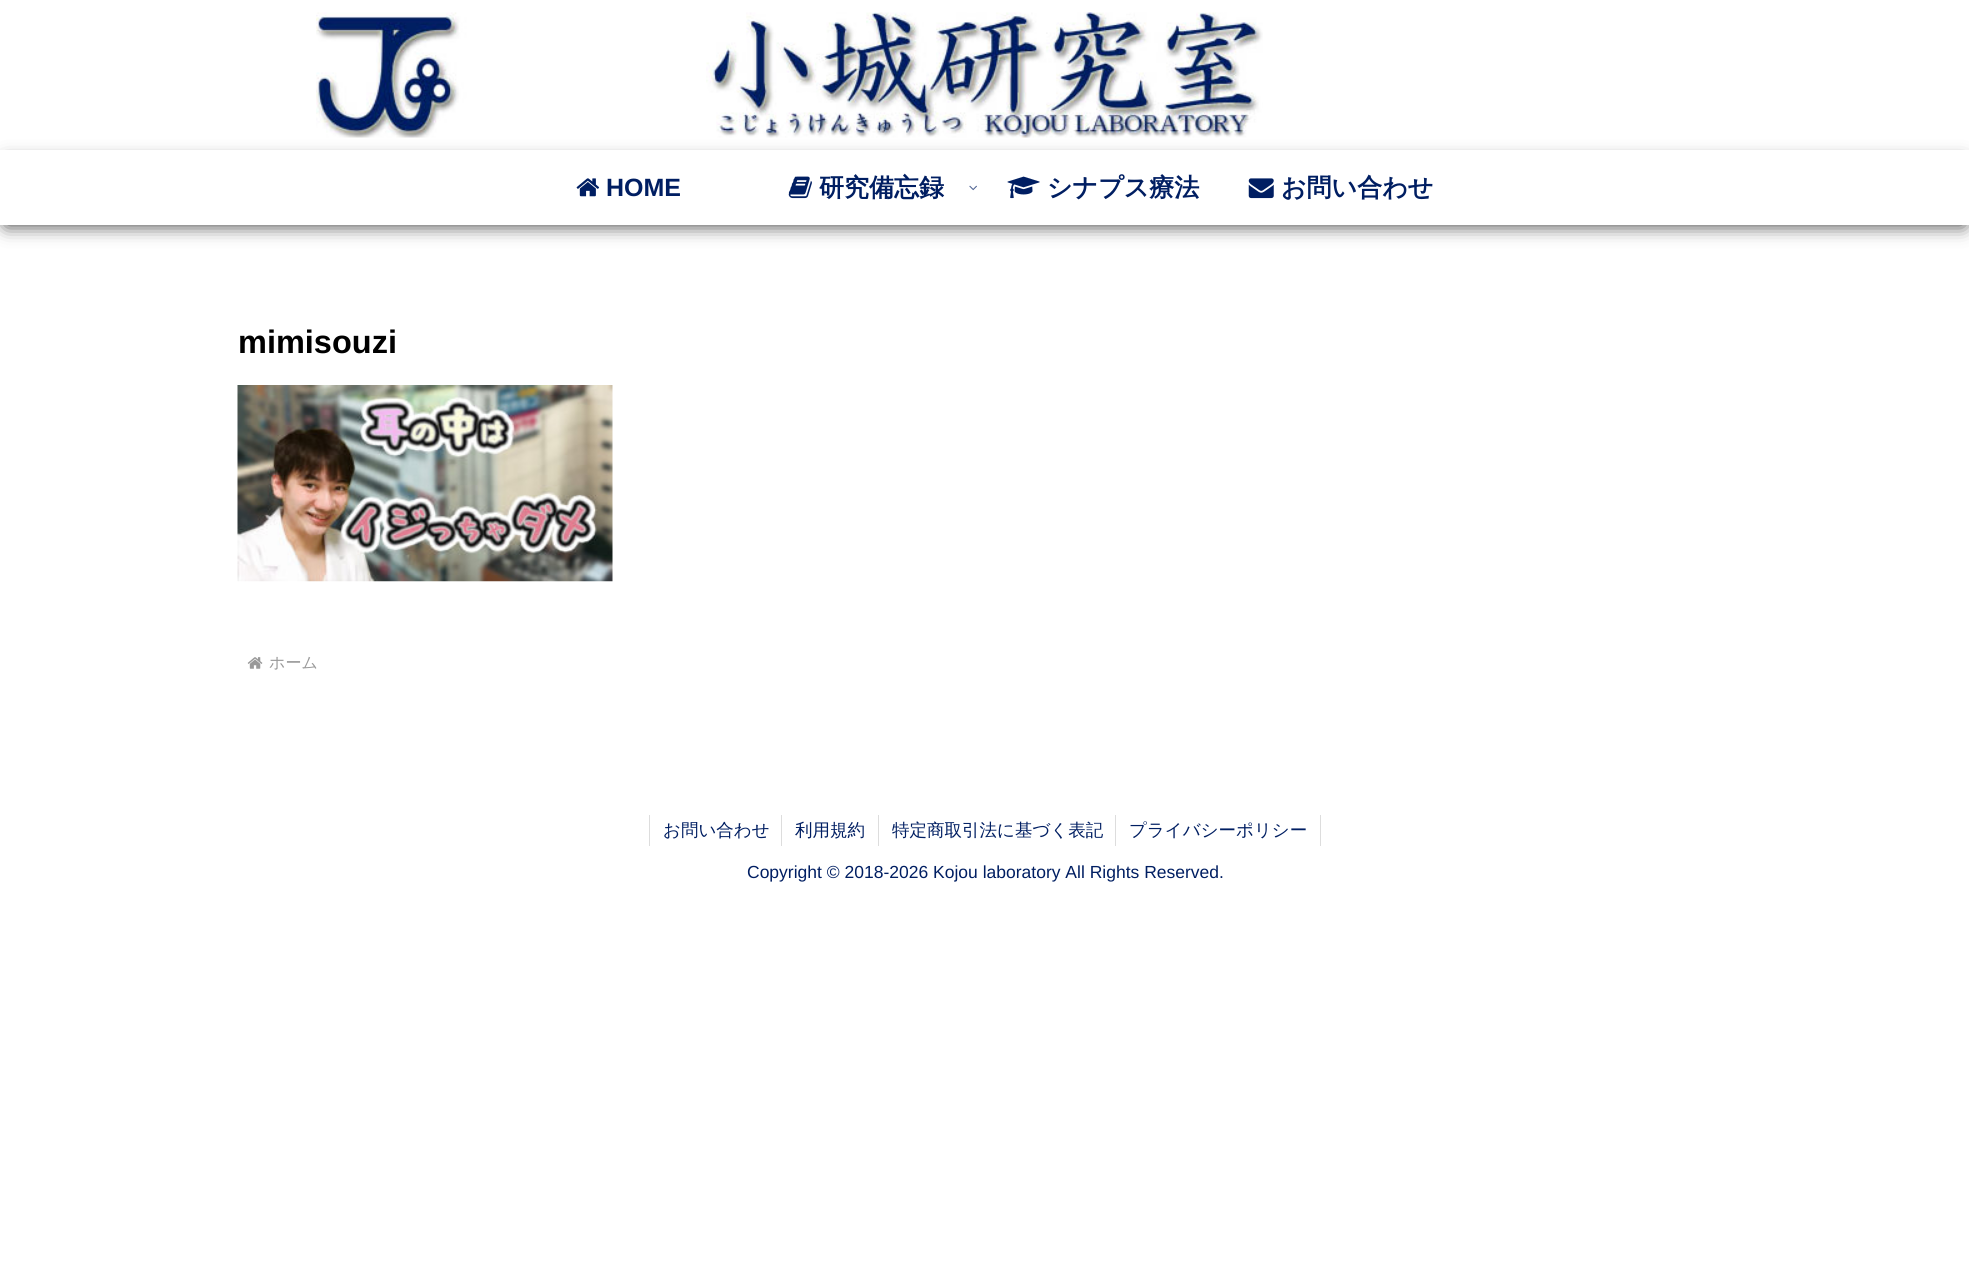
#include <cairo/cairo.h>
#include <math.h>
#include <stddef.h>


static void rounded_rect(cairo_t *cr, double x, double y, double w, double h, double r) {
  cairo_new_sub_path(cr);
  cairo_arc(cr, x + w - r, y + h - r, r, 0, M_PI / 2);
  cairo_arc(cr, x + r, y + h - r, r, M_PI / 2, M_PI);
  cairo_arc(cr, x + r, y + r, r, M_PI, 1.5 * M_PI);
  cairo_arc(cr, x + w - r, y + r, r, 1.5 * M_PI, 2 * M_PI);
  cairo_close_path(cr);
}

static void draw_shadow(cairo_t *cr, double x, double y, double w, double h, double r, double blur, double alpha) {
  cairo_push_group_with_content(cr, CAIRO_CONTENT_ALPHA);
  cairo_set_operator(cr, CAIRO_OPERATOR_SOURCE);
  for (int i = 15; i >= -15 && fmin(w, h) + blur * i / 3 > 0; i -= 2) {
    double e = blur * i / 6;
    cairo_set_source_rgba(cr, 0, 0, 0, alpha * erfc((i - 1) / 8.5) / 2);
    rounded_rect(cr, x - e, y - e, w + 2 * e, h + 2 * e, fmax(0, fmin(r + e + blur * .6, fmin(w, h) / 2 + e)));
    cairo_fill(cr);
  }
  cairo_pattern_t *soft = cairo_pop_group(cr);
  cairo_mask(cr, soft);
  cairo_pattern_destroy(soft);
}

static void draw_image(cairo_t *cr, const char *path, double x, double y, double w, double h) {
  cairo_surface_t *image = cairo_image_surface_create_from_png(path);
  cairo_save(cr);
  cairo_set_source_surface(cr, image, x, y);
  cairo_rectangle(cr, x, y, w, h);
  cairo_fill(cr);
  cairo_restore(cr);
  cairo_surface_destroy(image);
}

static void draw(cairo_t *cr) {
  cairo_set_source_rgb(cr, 1, 1, 1);
  cairo_paint(cr);
  cairo_save(cr);
  cairo_set_fill_rule(cr, CAIRO_FILL_RULE_EVEN_ODD);
  cairo_new_path(cr);
  cairo_move_to(cr, 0, 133);
  cairo_line_to(cr, 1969, 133);
  cairo_line_to(cr, 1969, 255);
  cairo_line_to(cr, 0, 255);
  cairo_close_path(cr);
  cairo_move_to(cr, 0, 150);
  cairo_line_to(cr, 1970, 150);
  cairo_line_to(cr, 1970, 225);
  cairo_line_to(cr, 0, 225);
  cairo_close_path(cr);
  cairo_clip(cr);
  cairo_set_source_rgb(cr, 0, 0, 0);
  draw_shadow(cr, 6, 163, 1958, 62, 0, 9.5, 0.8);
  cairo_restore(cr);
  draw_image(cr, "images/1.png", 316, 12, 947, 126);
  draw_image(cr, "images/2.png", 576, 178, 24, 19);
  draw_image(cr, "images/3.png", 788, 176, 24, 23);
  draw_image(cr, "images/4.png", 969, 185, 8, 6);
  draw_image(cr, "images/5.png", 1007, 176, 33, 23);
  draw_image(cr, "images/6.png", 1248, 178, 26, 21);
  draw_image(cr, "images/7.png", 237, 385, 376, 197);
  draw_image(cr, "images/8.png", 247, 657, 16, 12);
  cairo_set_source_rgb(cr, 221 / 255.0, 221 / 255.0, 221 / 255.0);
  cairo_rectangle(cr, 649, 815, 1, 31);
  cairo_fill(cr);
  cairo_rectangle(cr, 781, 815, 1, 31);
  cairo_fill(cr);
  cairo_rectangle(cr, 878, 815, 1, 31);
  cairo_fill(cr);
  cairo_rectangle(cr, 1320, 815, 1, 31);
  cairo_fill(cr);
  cairo_rectangle(cr, 1115, 815, 1, 31);
  cairo_fill(cr);
  cairo_select_font_face(cr, "Liberation Sans", CAIRO_FONT_SLANT_NORMAL, CAIRO_FONT_WEIGHT_BOLD);
  cairo_set_font_size(cr, 25);
  cairo_set_source_rgb(cr, 0, 30 / 255.0, 98 / 255.0);
  cairo_move_to(cr, 606, 196);
  cairo_show_text(cr, "HOME");
  cairo_select_font_face(cr, "WenQuanYi Zen Hei", CAIRO_FONT_SLANT_NORMAL, CAIRO_FONT_WEIGHT_BOLD);
  cairo_move_to(cr, 819, 196);
  cairo_show_text(cr, "研究備忘録");
  cairo_move_to(cr, 1047, 196);
  cairo_show_text(cr, "シナプス療法");
  cairo_move_to(cr, 1281, 196);
  cairo_show_text(cr, "お問い合わせ");
  cairo_select_font_face(cr, "Liberation Sans", CAIRO_FONT_SLANT_NORMAL, CAIRO_FONT_WEIGHT_BOLD);
  cairo_set_font_size(cr, 32.5);
  cairo_set_source_rgb(cr, 0, 0, 0);
  cairo_move_to(cr, 238, 353);
  cairo_show_text(cr, "mimisouzi");
  cairo_select_font_face(cr, "WenQuanYi Zen Hei Medium", CAIRO_FONT_SLANT_NORMAL, CAIRO_FONT_WEIGHT_NORMAL);
  cairo_set_font_size(cr, 16);
  cairo_set_source_rgb(cr, 153 / 255.0, 153 / 255.0, 153 / 255.0);
  cairo_move_to(cr, 269, 668);
  cairo_show_text(cr, "ホーム");
  cairo_set_font_size(cr, 17.5);
  cairo_set_source_rgb(cr, 0, 30 / 255.0, 98 / 255.0);
  cairo_move_to(cr, 663, 836);
  cairo_show_text(cr, "お問い合わせ");
  cairo_move_to(cr, 795, 836);
  cairo_show_text(cr, "利用規約");
  cairo_move_to(cr, 892, 836);
  cairo_show_text(cr, "特定商取引法に基づく表記");
  cairo_move_to(cr, 1129, 836);
  cairo_show_text(cr, "プライバシーポリシー");
  cairo_select_font_face(cr, "Liberation Sans", CAIRO_FONT_SLANT_NORMAL, CAIRO_FONT_WEIGHT_NORMAL);
  cairo_move_to(cr, 747, 878);
  cairo_show_text(cr, "Copyright © 2018-2026 Kojou laboratory All Rights Reserved.");
}

int main(void) {
  cairo_surface_t *surface = cairo_image_surface_create(CAIRO_FORMAT_RGB24, 1969, 1271);
  cairo_t *cr = cairo_create(surface);
  cairo_font_options_t *options = cairo_font_options_create();
  cairo_font_options_set_hint_metrics(options, CAIRO_HINT_METRICS_OFF);
  cairo_font_options_set_hint_style(options, CAIRO_HINT_STYLE_NONE);
  cairo_set_font_options(cr, options);
  cairo_set_miter_limit(cr, 4);
  draw(cr);
  cairo_surface_write_to_png(surface, "out.png");
  cairo_font_options_destroy(options);
  cairo_destroy(cr);
  cairo_surface_destroy(surface);
  return 0;
}
